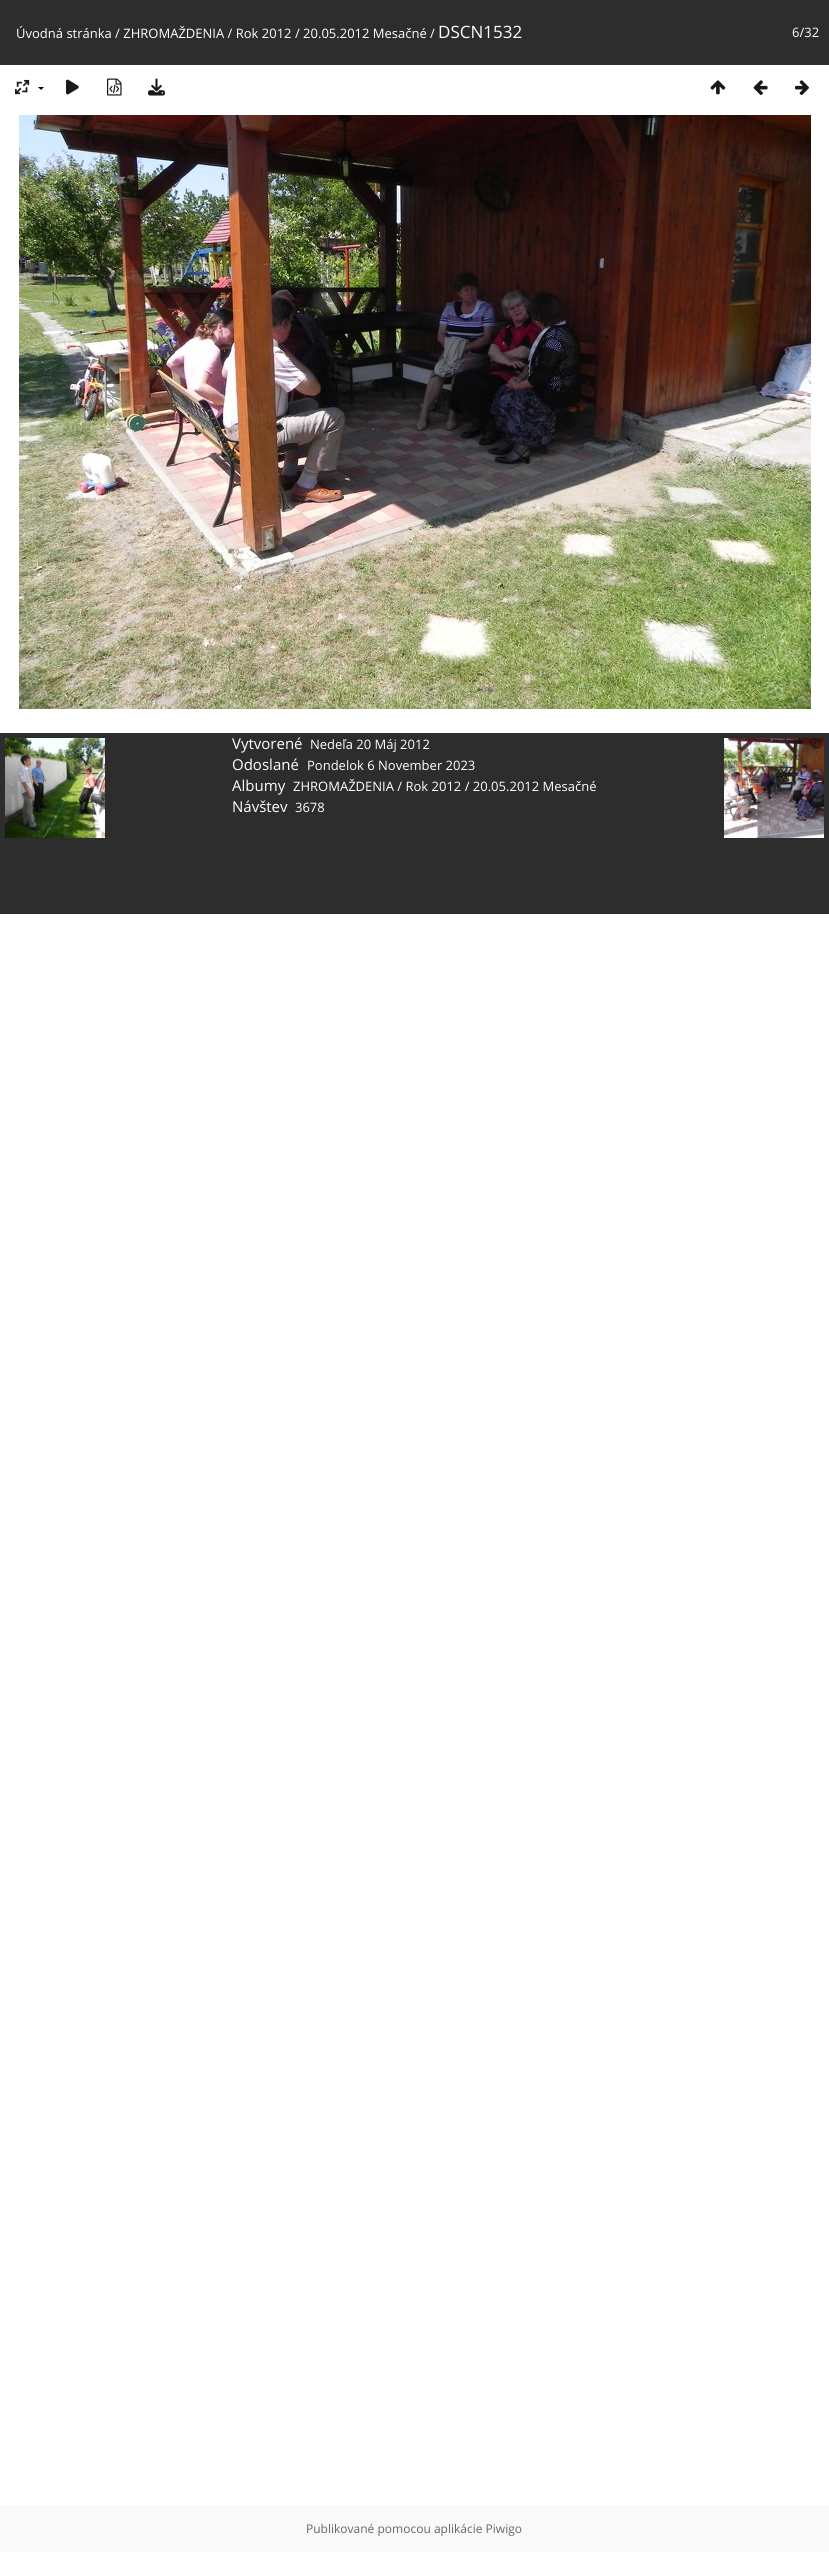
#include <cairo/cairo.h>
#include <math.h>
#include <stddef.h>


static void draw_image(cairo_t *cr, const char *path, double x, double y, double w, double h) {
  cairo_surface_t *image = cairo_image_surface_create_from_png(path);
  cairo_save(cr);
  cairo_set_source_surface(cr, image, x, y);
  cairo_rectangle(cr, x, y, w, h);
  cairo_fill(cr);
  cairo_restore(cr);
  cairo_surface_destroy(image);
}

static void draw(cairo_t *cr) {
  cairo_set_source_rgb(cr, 1, 1, 1);
  cairo_paint(cr);
  cairo_set_source_rgb(cr, 45 / 255.0, 45 / 255.0, 45 / 255.0);
  cairo_rectangle(cr, 0, 0, 829, 65);
  cairo_fill(cr);
  draw_image(cr, "images/1.png", 15, 79, 15, 16);
  cairo_set_source_rgb(cr, 0, 0, 0);
  cairo_new_path(cr);
  cairo_move_to(cr, 38, 87);
  cairo_line_to(cr, 44, 87);
  cairo_line_to(cr, 41, 90);
  cairo_close_path(cr);
  cairo_fill(cr);
  draw_image(cr, "images/2.png", 66, 79, 13, 16);
  draw_image(cr, "images/3.png", 107, 78, 15, 18);
  draw_image(cr, "images/4.png", 148, 78, 17, 18);
  draw_image(cr, "images/5.png", 710, 80, 16, 15);
  draw_image(cr, "images/6.png", 753, 80, 15, 15);
  draw_image(cr, "images/7.png", 795, 80, 14, 15);
  draw_image(cr, "images/8.png", 19, 115, 792, 594);
  cairo_set_source_rgb(cr, 45 / 255.0, 45 / 255.0, 45 / 255.0);
  cairo_rectangle(cr, 0, 733, 829, 181);
  cairo_fill(cr);
  draw_image(cr, "images/9.png", 5, 738, 100, 100);
  draw_image(cr, "images/10.png", 724, 738, 100, 100);
  cairo_set_source_rgb(cr, 249 / 255.0, 249 / 255.0, 249 / 255.0);
  cairo_rectangle(cr, 0, 2505, 829, 47);
  cairo_fill(cr);
  cairo_select_font_face(cr, "Open Sans", CAIRO_FONT_SLANT_NORMAL, CAIRO_FONT_WEIGHT_NORMAL);
  cairo_set_font_size(cr, 13);
  cairo_set_source_rgb(cr, 1, 1, 1);
  cairo_move_to(cr, 16, 38);
  cairo_show_text(cr, "Úvodná stránka / ZHROMAŽDENIA / Rok 2012 / 20.05.2012 Mesačné /");
  cairo_set_font_size(cr, 17);
  cairo_move_to(cr, 438, 38);
  cairo_show_text(cr, "DSCN1532");
  cairo_set_font_size(cr, 13);
  cairo_move_to(cr, 792, 37);
  cairo_show_text(cr, "6/32");
  cairo_set_font_size(cr, 15);
  cairo_move_to(cr, 232, 749);
  cairo_show_text(cr, "Vytvorené");
  cairo_set_font_size(cr, 13);
  cairo_move_to(cr, 310, 749);
  cairo_show_text(cr, "Nedeľa 20 Máj 2012");
  cairo_set_font_size(cr, 15);
  cairo_move_to(cr, 232, 770);
  cairo_show_text(cr, "Odoslané");
  cairo_set_font_size(cr, 13);
  cairo_move_to(cr, 307, 770);
  cairo_show_text(cr, "Pondelok 6 November 2023");
  cairo_set_font_size(cr, 15);
  cairo_move_to(cr, 232, 791);
  cairo_show_text(cr, "Albumy");
  cairo_set_font_size(cr, 13);
  cairo_move_to(cr, 293, 791);
  cairo_show_text(cr, "ZHROMAŽDENIA / Rok 2012 / 20.05.2012 Mesačné");
  cairo_set_font_size(cr, 15);
  cairo_move_to(cr, 232, 812);
  cairo_show_text(cr, "Návštev");
  cairo_set_font_size(cr, 13);
  cairo_move_to(cr, 295, 812);
  cairo_show_text(cr, "3678");
  cairo_set_font_size(cr, 12);
  cairo_set_source_rgb(cr, 102 / 255.0, 102 / 255.0, 102 / 255.0);
  cairo_move_to(cr, 306, 2533);
  cairo_show_text(cr, "Publikované pomocou aplikácie Piwigo");
}

int main(void) {
  cairo_surface_t *surface = cairo_image_surface_create(CAIRO_FORMAT_RGB24, 829, 2552);
  cairo_t *cr = cairo_create(surface);
  cairo_font_options_t *options = cairo_font_options_create();
  cairo_font_options_set_hint_metrics(options, CAIRO_HINT_METRICS_OFF);
  cairo_font_options_set_hint_style(options, CAIRO_HINT_STYLE_NONE);
  cairo_set_font_options(cr, options);
  cairo_set_miter_limit(cr, 4);
  draw(cr);
  cairo_surface_write_to_png(surface, "out.png");
  cairo_font_options_destroy(options);
  cairo_destroy(cr);
  cairo_surface_destroy(surface);
  return 0;
}
